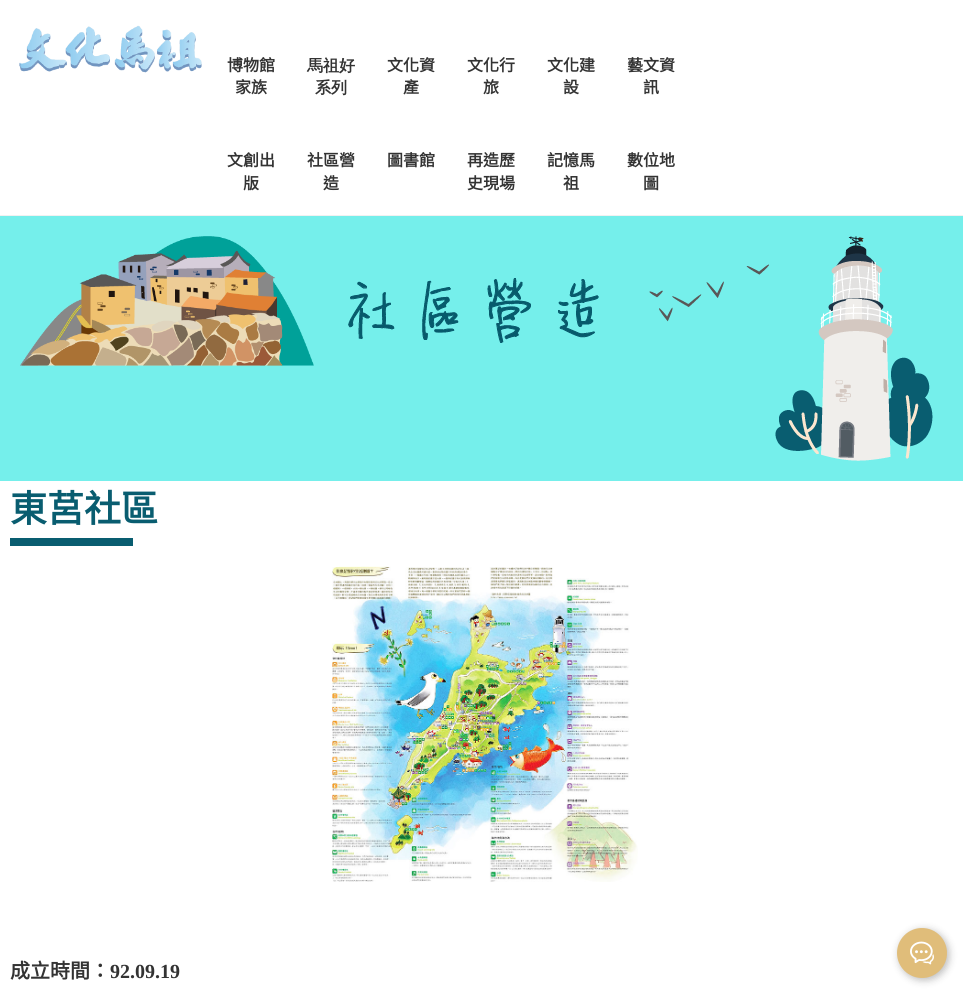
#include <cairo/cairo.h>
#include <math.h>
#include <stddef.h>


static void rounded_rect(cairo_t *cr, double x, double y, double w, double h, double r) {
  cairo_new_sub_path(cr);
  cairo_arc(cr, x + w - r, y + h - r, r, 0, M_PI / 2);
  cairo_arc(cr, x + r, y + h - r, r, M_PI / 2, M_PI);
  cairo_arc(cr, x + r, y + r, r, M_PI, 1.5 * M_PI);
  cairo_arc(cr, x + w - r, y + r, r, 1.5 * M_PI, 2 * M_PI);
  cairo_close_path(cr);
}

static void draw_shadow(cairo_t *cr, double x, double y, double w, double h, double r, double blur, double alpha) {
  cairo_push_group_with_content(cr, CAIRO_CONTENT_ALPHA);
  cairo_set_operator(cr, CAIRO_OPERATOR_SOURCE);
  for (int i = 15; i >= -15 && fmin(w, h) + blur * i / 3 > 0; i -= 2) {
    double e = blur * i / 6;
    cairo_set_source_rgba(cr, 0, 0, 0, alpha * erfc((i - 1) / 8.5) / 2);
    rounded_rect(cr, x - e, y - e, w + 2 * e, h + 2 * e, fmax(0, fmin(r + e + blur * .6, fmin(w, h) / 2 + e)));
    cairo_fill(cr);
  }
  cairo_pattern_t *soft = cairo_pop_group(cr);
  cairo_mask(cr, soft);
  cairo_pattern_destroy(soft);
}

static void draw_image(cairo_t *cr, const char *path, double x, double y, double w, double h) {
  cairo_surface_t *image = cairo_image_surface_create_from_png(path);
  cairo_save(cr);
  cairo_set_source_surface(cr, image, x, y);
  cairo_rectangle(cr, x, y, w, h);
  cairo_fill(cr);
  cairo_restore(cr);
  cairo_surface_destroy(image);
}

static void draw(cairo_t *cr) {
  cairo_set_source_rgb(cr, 1, 1, 1);
  cairo_paint(cr);
  cairo_set_source_rgb(cr, 241 / 255.0, 241 / 255.0, 241 / 255.0);
  cairo_rectangle(cr, 0, 215, 963, 1);
  cairo_fill(cr);
  draw_image(cr, "images/1.png", 19, 25, 183, 48);
  cairo_set_source_rgb(cr, 117 / 255.0, 239 / 255.0, 235 / 255.0);
  cairo_rectangle(cr, 0, 216, 963, 265);
  cairo_fill(cr);
  draw_image(cr, "images/2.png", 20, 236, 294, 130);
  draw_image(cr, "images/3.png", 348, 278, 251, 65);
  draw_image(cr, "images/4.png", 649, 236, 284, 225);
  cairo_set_source_rgb(cr, 9 / 255.0, 93 / 255.0, 112 / 255.0);
  cairo_rectangle(cr, 10, 538, 123, 8);
  cairo_fill(cr);
  draw_image(cr, "images/5.png", 332, 566, 306, 316);
  cairo_set_source_rgb(cr, 0, 0, 0);
  draw_shadow(cr, 899, 930, 50, 50, 25, 4, 0.27);
  cairo_set_source_rgb(cr, 224 / 255.0, 189 / 255.0, 122 / 255.0);
  cairo_arc(cr, 922, 953, 25, 0, 2 * M_PI);
  cairo_fill(cr);
  draw_image(cr, "images/6.png", 910, 941, 24, 24);
  cairo_select_font_face(cr, "Noto Sans CJK TC", CAIRO_FONT_SLANT_NORMAL, CAIRO_FONT_WEIGHT_BOLD);
  cairo_set_font_size(cr, 16);
  cairo_set_source_rgb(cr, 51 / 255.0, 51 / 255.0, 51 / 255.0);
  cairo_move_to(cr, 227, 71);
  cairo_show_text(cr, "博物館");
  cairo_move_to(cr, 235, 93);
  cairo_show_text(cr, "家族");
  cairo_select_font_face(cr, "WenQuanYi Zen Hei", CAIRO_FONT_SLANT_NORMAL, CAIRO_FONT_WEIGHT_BOLD);
  cairo_move_to(cr, 307, 71);
  cairo_show_text(cr, "馬祖好");
  cairo_move_to(cr, 315, 93);
  cairo_show_text(cr, "系列");
  cairo_select_font_face(cr, "Noto Sans CJK TC", CAIRO_FONT_SLANT_NORMAL, CAIRO_FONT_WEIGHT_BOLD);
  cairo_move_to(cr, 387, 71);
  cairo_show_text(cr, "文化資");
  cairo_move_to(cr, 403, 93);
  cairo_show_text(cr, "產");
  cairo_move_to(cr, 467, 71);
  cairo_show_text(cr, "文化行");
  cairo_move_to(cr, 483, 93);
  cairo_show_text(cr, "旅");
  cairo_move_to(cr, 547, 71);
  cairo_show_text(cr, "文化建");
  cairo_move_to(cr, 563, 93);
  cairo_show_text(cr, "設");
  cairo_move_to(cr, 627, 71);
  cairo_show_text(cr, "藝文資");
  cairo_move_to(cr, 643, 93);
  cairo_show_text(cr, "訊");
  cairo_move_to(cr, 227, 166);
  cairo_show_text(cr, "文創出");
  cairo_move_to(cr, 243, 189);
  cairo_show_text(cr, "版");
  cairo_move_to(cr, 307, 166);
  cairo_show_text(cr, "社區營");
  cairo_move_to(cr, 323, 189);
  cairo_show_text(cr, "造");
  cairo_move_to(cr, 387, 166);
  cairo_show_text(cr, "圖書館");
  cairo_move_to(cr, 467, 166);
  cairo_show_text(cr, "再造歷");
  cairo_move_to(cr, 467, 189);
  cairo_show_text(cr, "史現場");
  cairo_move_to(cr, 547, 166);
  cairo_show_text(cr, "記憶馬");
  cairo_move_to(cr, 563, 189);
  cairo_show_text(cr, "祖");
  cairo_move_to(cr, 627, 166);
  cairo_show_text(cr, "數位地");
  cairo_move_to(cr, 643, 189);
  cairo_show_text(cr, "圖");
  cairo_set_font_size(cr, 37);
  cairo_set_source_rgb(cr, 9 / 255.0, 93 / 255.0, 112 / 255.0);
  cairo_move_to(cr, 10, 522);
  cairo_show_text(cr, "東莒社區");
  cairo_set_font_size(cr, 20);
  cairo_set_source_rgb(cr, 51 / 255.0, 51 / 255.0, 51 / 255.0);
  cairo_move_to(cr, 10, 978);
  cairo_show_text(cr, "成立時間：");
  cairo_select_font_face(cr, "Liberation Serif", CAIRO_FONT_SLANT_NORMAL, CAIRO_FONT_WEIGHT_BOLD);
  cairo_move_to(cr, 110, 978);
  cairo_show_text(cr, "92.09.19");
}

int main(void) {
  cairo_surface_t *surface = cairo_image_surface_create(CAIRO_FORMAT_RGB24, 963, 994);
  cairo_t *cr = cairo_create(surface);
  cairo_font_options_t *options = cairo_font_options_create();
  cairo_font_options_set_hint_metrics(options, CAIRO_HINT_METRICS_OFF);
  cairo_font_options_set_hint_style(options, CAIRO_HINT_STYLE_NONE);
  cairo_set_font_options(cr, options);
  cairo_set_miter_limit(cr, 4);
  draw(cr);
  cairo_surface_write_to_png(surface, "out.png");
  cairo_font_options_destroy(options);
  cairo_destroy(cr);
  cairo_surface_destroy(surface);
  return 0;
}
